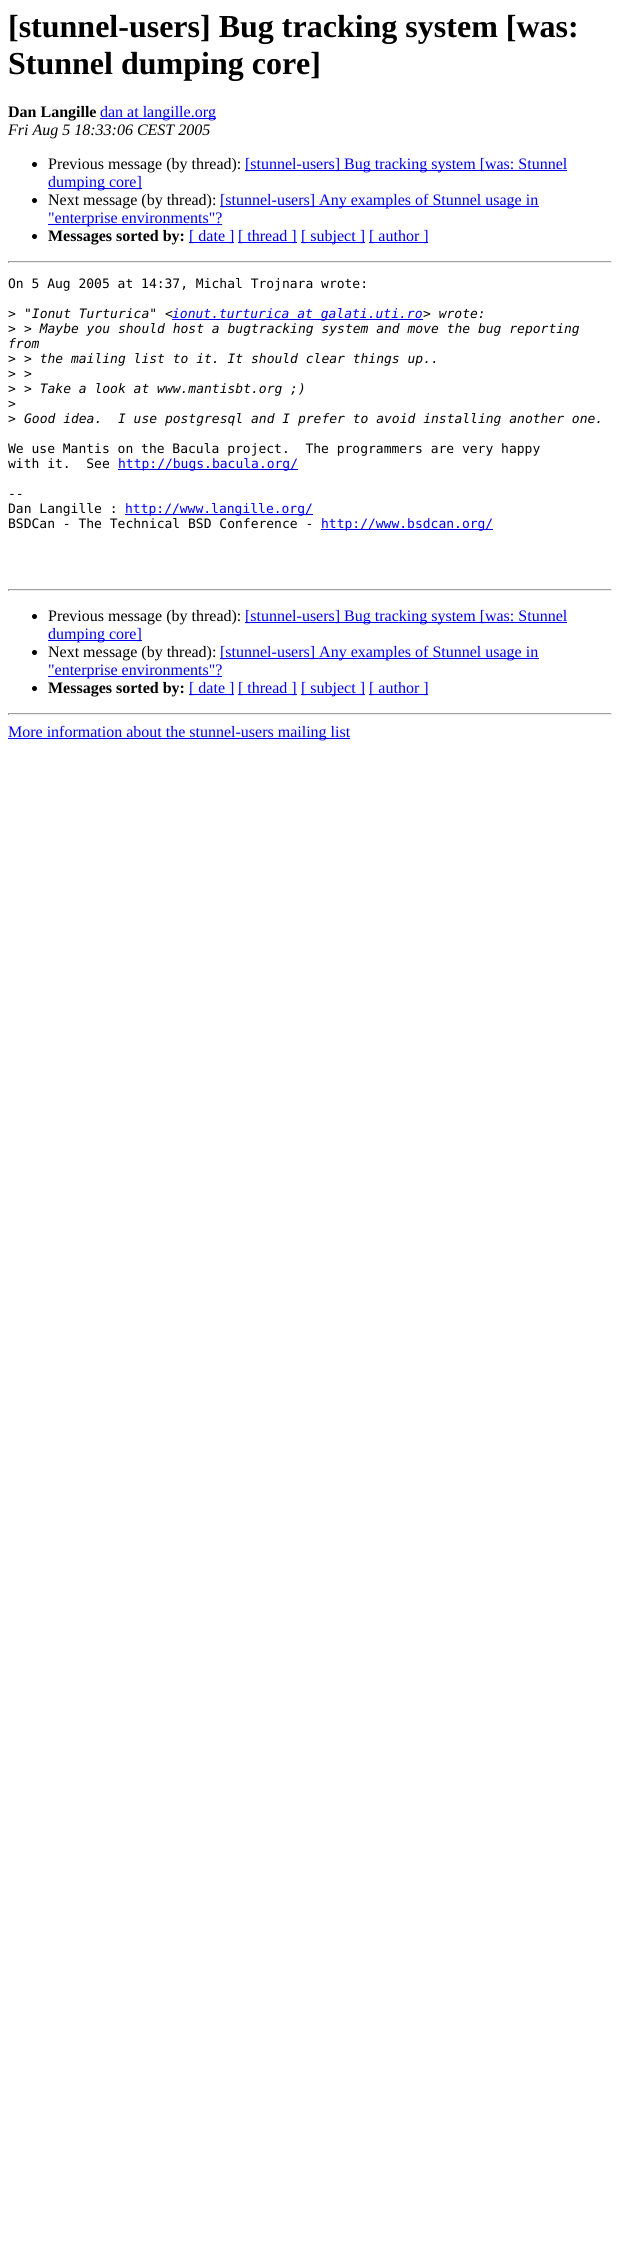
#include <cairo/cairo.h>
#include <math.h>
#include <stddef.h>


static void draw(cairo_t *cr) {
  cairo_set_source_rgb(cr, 1, 1, 1);
  cairo_paint(cr);
  cairo_set_source_rgb(cr, 0, 0, 238 / 255.0);
  cairo_rectangle(cr, 100, 118, 116, 1);
  cairo_fill(cr);
  cairo_set_source_rgb(cr, 0, 0, 0);
  cairo_arc(cr, 34.5, 164.5, 2.5, 0, 2 * M_PI);
  cairo_fill(cr);
  cairo_set_source_rgb(cr, 0, 0, 238 / 255.0);
  cairo_rectangle(cr, 245, 170, 322, 1);
  cairo_fill(cr);
  cairo_rectangle(cr, 48, 188, 94, 1);
  cairo_fill(cr);
  cairo_set_source_rgb(cr, 0, 0, 0);
  cairo_arc(cr, 34.5, 200.5, 2.5, 0, 2 * M_PI);
  cairo_fill(cr);
  cairo_set_source_rgb(cr, 0, 0, 238 / 255.0);
  cairo_rectangle(cr, 220, 206, 319, 1);
  cairo_fill(cr);
  cairo_rectangle(cr, 48, 224, 174, 1);
  cairo_fill(cr);
  cairo_set_source_rgb(cr, 0, 0, 0);
  cairo_arc(cr, 34.5, 236.5, 2.5, 0, 2 * M_PI);
  cairo_fill(cr);
  cairo_set_source_rgb(cr, 0, 0, 238 / 255.0);
  cairo_rectangle(cr, 189, 242, 45, 1);
  cairo_fill(cr);
  cairo_rectangle(cr, 238, 242, 59, 1);
  cairo_fill(cr);
  cairo_rectangle(cr, 301, 242, 64, 1);
  cairo_fill(cr);
  cairo_rectangle(cr, 369, 242, 59, 1);
  cairo_fill(cr);
  cairo_set_source_rgb(cr, 159 / 255.0, 159 / 255.0, 159 / 255.0);
  cairo_rectangle(cr, 8, 261, 604, 1);
  cairo_fill(cr);
  cairo_set_source_rgb(cr, 238 / 255.0, 238 / 255.0, 238 / 255.0);
  cairo_rectangle(cr, 611, 261, 1, 2);
  cairo_fill(cr);
  cairo_rectangle(cr, 8, 262, 604, 1);
  cairo_fill(cr);
  cairo_set_source_rgb(cr, 159 / 255.0, 159 / 255.0, 159 / 255.0);
  cairo_rectangle(cr, 8, 261, 1, 2);
  cairo_fill(cr);
  cairo_set_source_rgb(cr, 0, 0, 238 / 255.0);
  cairo_rectangle(cr, 172, 319, 251, 1);
  cairo_fill(cr);
  cairo_rectangle(cr, 118, 469, 180, 1);
  cairo_fill(cr);
  cairo_rectangle(cr, 125, 514, 188, 1);
  cairo_fill(cr);
  cairo_rectangle(cr, 321, 529, 172, 1);
  cairo_fill(cr);
  cairo_set_source_rgb(cr, 159 / 255.0, 159 / 255.0, 159 / 255.0);
  cairo_rectangle(cr, 8, 589, 604, 1);
  cairo_fill(cr);
  cairo_set_source_rgb(cr, 238 / 255.0, 238 / 255.0, 238 / 255.0);
  cairo_rectangle(cr, 611, 589, 1, 2);
  cairo_fill(cr);
  cairo_rectangle(cr, 8, 590, 604, 1);
  cairo_fill(cr);
  cairo_set_source_rgb(cr, 159 / 255.0, 159 / 255.0, 159 / 255.0);
  cairo_rectangle(cr, 8, 589, 1, 2);
  cairo_fill(cr);
  cairo_set_source_rgb(cr, 0, 0, 0);
  cairo_arc(cr, 34.5, 616.5, 2.5, 0, 2 * M_PI);
  cairo_fill(cr);
  cairo_set_source_rgb(cr, 0, 0, 238 / 255.0);
  cairo_rectangle(cr, 245, 622, 322, 1);
  cairo_fill(cr);
  cairo_rectangle(cr, 48, 640, 94, 1);
  cairo_fill(cr);
  cairo_set_source_rgb(cr, 0, 0, 0);
  cairo_arc(cr, 34.5, 652.5, 2.5, 0, 2 * M_PI);
  cairo_fill(cr);
  cairo_set_source_rgb(cr, 0, 0, 238 / 255.0);
  cairo_rectangle(cr, 220, 658, 319, 1);
  cairo_fill(cr);
  cairo_rectangle(cr, 48, 676, 174, 1);
  cairo_fill(cr);
  cairo_set_source_rgb(cr, 0, 0, 0);
  cairo_arc(cr, 34.5, 688.5, 2.5, 0, 2 * M_PI);
  cairo_fill(cr);
  cairo_set_source_rgb(cr, 0, 0, 238 / 255.0);
  cairo_rectangle(cr, 189, 694, 45, 1);
  cairo_fill(cr);
  cairo_rectangle(cr, 238, 694, 59, 1);
  cairo_fill(cr);
  cairo_rectangle(cr, 301, 694, 64, 1);
  cairo_fill(cr);
  cairo_rectangle(cr, 369, 694, 59, 1);
  cairo_fill(cr);
  cairo_set_source_rgb(cr, 159 / 255.0, 159 / 255.0, 159 / 255.0);
  cairo_rectangle(cr, 8, 713, 604, 1);
  cairo_fill(cr);
  cairo_set_source_rgb(cr, 238 / 255.0, 238 / 255.0, 238 / 255.0);
  cairo_rectangle(cr, 611, 713, 1, 2);
  cairo_fill(cr);
  cairo_rectangle(cr, 8, 714, 604, 1);
  cairo_fill(cr);
  cairo_set_source_rgb(cr, 159 / 255.0, 159 / 255.0, 159 / 255.0);
  cairo_rectangle(cr, 8, 713, 1, 2);
  cairo_fill(cr);
  cairo_set_source_rgb(cr, 0, 0, 238 / 255.0);
  cairo_rectangle(cr, 8, 738, 342, 1);
  cairo_fill(cr);
  cairo_select_font_face(cr, "Liberation Serif", CAIRO_FONT_SLANT_NORMAL, CAIRO_FONT_WEIGHT_BOLD);
  cairo_set_font_size(cr, 32);
  cairo_set_source_rgb(cr, 0, 0, 0);
  cairo_move_to(cr, 8, 37);
  cairo_show_text(cr, "[stunnel-users] Bug tracking system [was:");
  cairo_move_to(cr, 8, 74);
  cairo_show_text(cr, "Stunnel dumping core]");
  cairo_set_font_size(cr, 16);
  cairo_move_to(cr, 8, 117);
  cairo_show_text(cr, "Dan Langille");
  cairo_select_font_face(cr, "Liberation Serif", CAIRO_FONT_SLANT_NORMAL, CAIRO_FONT_WEIGHT_NORMAL);
  cairo_set_source_rgb(cr, 0, 0, 238 / 255.0);
  cairo_move_to(cr, 100, 117);
  cairo_show_text(cr, "dan at langille.org");
  cairo_select_font_face(cr, "Liberation Serif", CAIRO_FONT_SLANT_ITALIC, CAIRO_FONT_WEIGHT_NORMAL);
  cairo_set_source_rgb(cr, 0, 0, 0);
  cairo_move_to(cr, 8, 135);
  cairo_show_text(cr, "Fri Aug 5 18:33:06 CEST 2005");
  cairo_select_font_face(cr, "Liberation Serif", CAIRO_FONT_SLANT_NORMAL, CAIRO_FONT_WEIGHT_NORMAL);
  cairo_move_to(cr, 48, 169);
  cairo_show_text(cr, "Previous message (by thread):");
  cairo_set_source_rgb(cr, 0, 0, 238 / 255.0);
  cairo_move_to(cr, 245, 169);
  cairo_show_text(cr, "[stunnel-users] Bug tracking system [was: Stunnel");
  cairo_move_to(cr, 48, 187);
  cairo_show_text(cr, "dumping core]");
  cairo_set_source_rgb(cr, 0, 0, 0);
  cairo_move_to(cr, 48, 205);
  cairo_show_text(cr, "Next message (by thread):");
  cairo_set_source_rgb(cr, 0, 0, 238 / 255.0);
  cairo_move_to(cr, 220, 205);
  cairo_show_text(cr, "[stunnel-users] Any examples of Stunnel usage in");
  cairo_move_to(cr, 48, 223);
  cairo_show_text(cr, "\"enterprise environments\"?");
  cairo_select_font_face(cr, "Liberation Serif", CAIRO_FONT_SLANT_NORMAL, CAIRO_FONT_WEIGHT_BOLD);
  cairo_set_source_rgb(cr, 0, 0, 0);
  cairo_move_to(cr, 48, 241);
  cairo_show_text(cr, "Messages sorted by:");
  cairo_select_font_face(cr, "Liberation Serif", CAIRO_FONT_SLANT_NORMAL, CAIRO_FONT_WEIGHT_NORMAL);
  cairo_set_source_rgb(cr, 0, 0, 238 / 255.0);
  cairo_move_to(cr, 189, 241);
  cairo_show_text(cr, "[ date ]");
  cairo_move_to(cr, 238, 241);
  cairo_show_text(cr, "[ thread ]");
  cairo_move_to(cr, 301, 241);
  cairo_show_text(cr, "[ subject ]");
  cairo_move_to(cr, 369, 241);
  cairo_show_text(cr, "[ author ]");
  cairo_select_font_face(cr, "DejaVu Sans Mono", CAIRO_FONT_SLANT_NORMAL, CAIRO_FONT_WEIGHT_NORMAL);
  cairo_set_font_size(cr, 13);
  cairo_set_source_rgb(cr, 0, 0, 0);
  cairo_move_to(cr, 8, 288);
  cairo_show_text(cr, "On 5 Aug 2005 at 14:37, Michal Trojnara wrote:");
  cairo_move_to(cr, 8, 318);
  cairo_show_text(cr, ">");
  cairo_select_font_face(cr, "DejaVu Sans Mono", CAIRO_FONT_SLANT_ITALIC, CAIRO_FONT_WEIGHT_NORMAL);
  cairo_move_to(cr, 24, 318);
  cairo_show_text(cr, "\"Ionut Turturica\" <");
  cairo_set_source_rgb(cr, 0, 0, 238 / 255.0);
  cairo_move_to(cr, 172, 318);
  cairo_show_text(cr, "ionut.turturica at galati.uti.ro");
  cairo_set_source_rgb(cr, 0, 0, 0);
  cairo_move_to(cr, 423, 318);
  cairo_show_text(cr, "> wrote:");
  cairo_select_font_face(cr, "DejaVu Sans Mono", CAIRO_FONT_SLANT_NORMAL, CAIRO_FONT_WEIGHT_NORMAL);
  cairo_move_to(cr, 8, 333);
  cairo_show_text(cr, ">");
  cairo_select_font_face(cr, "DejaVu Sans Mono", CAIRO_FONT_SLANT_ITALIC, CAIRO_FONT_WEIGHT_NORMAL);
  cairo_move_to(cr, 24, 333);
  cairo_show_text(cr, "> Maybe you should host a bugtracking system and move the bug reporting");
  cairo_move_to(cr, 8, 348);
  cairo_show_text(cr, "from");
  cairo_select_font_face(cr, "DejaVu Sans Mono", CAIRO_FONT_SLANT_NORMAL, CAIRO_FONT_WEIGHT_NORMAL);
  cairo_move_to(cr, 8, 363);
  cairo_show_text(cr, ">");
  cairo_select_font_face(cr, "DejaVu Sans Mono", CAIRO_FONT_SLANT_ITALIC, CAIRO_FONT_WEIGHT_NORMAL);
  cairo_move_to(cr, 24, 363);
  cairo_show_text(cr, "> the mailing list to it. It should clear things up..");
  cairo_select_font_face(cr, "DejaVu Sans Mono", CAIRO_FONT_SLANT_NORMAL, CAIRO_FONT_WEIGHT_NORMAL);
  cairo_move_to(cr, 8, 378);
  cairo_show_text(cr, ">");
  cairo_select_font_face(cr, "DejaVu Sans Mono", CAIRO_FONT_SLANT_ITALIC, CAIRO_FONT_WEIGHT_NORMAL);
  cairo_move_to(cr, 24, 378);
  cairo_show_text(cr, ">");
  cairo_select_font_face(cr, "DejaVu Sans Mono", CAIRO_FONT_SLANT_NORMAL, CAIRO_FONT_WEIGHT_NORMAL);
  cairo_move_to(cr, 8, 393);
  cairo_show_text(cr, ">");
  cairo_select_font_face(cr, "DejaVu Sans Mono", CAIRO_FONT_SLANT_ITALIC, CAIRO_FONT_WEIGHT_NORMAL);
  cairo_move_to(cr, 24, 393);
  cairo_show_text(cr, "> Take a look at www.mantisbt.org ;)");
  cairo_select_font_face(cr, "DejaVu Sans Mono", CAIRO_FONT_SLANT_NORMAL, CAIRO_FONT_WEIGHT_NORMAL);
  cairo_move_to(cr, 8, 408);
  cairo_show_text(cr, ">");
  cairo_move_to(cr, 8, 423);
  cairo_show_text(cr, ">");
  cairo_select_font_face(cr, "DejaVu Sans Mono", CAIRO_FONT_SLANT_ITALIC, CAIRO_FONT_WEIGHT_NORMAL);
  cairo_move_to(cr, 24, 423);
  cairo_show_text(cr, "Good idea.  I use postgresql and I prefer to avoid installing another one.");
  cairo_select_font_face(cr, "DejaVu Sans Mono", CAIRO_FONT_SLANT_NORMAL, CAIRO_FONT_WEIGHT_NORMAL);
  cairo_move_to(cr, 8, 453);
  cairo_show_text(cr, "We use Mantis on the Bacula project.  The programmers are very happy");
  cairo_move_to(cr, 8, 468);
  cairo_show_text(cr, "with it.  See");
  cairo_set_source_rgb(cr, 0, 0, 238 / 255.0);
  cairo_move_to(cr, 118, 468);
  cairo_show_text(cr, "http://bugs.bacula.org/");
  cairo_set_source_rgb(cr, 0, 0, 0);
  cairo_move_to(cr, 8, 498);
  cairo_show_text(cr, "--");
  cairo_move_to(cr, 8, 513);
  cairo_show_text(cr, "Dan Langille :");
  cairo_set_source_rgb(cr, 0, 0, 238 / 255.0);
  cairo_move_to(cr, 125, 513);
  cairo_show_text(cr, "http://www.langille.org/");
  cairo_set_source_rgb(cr, 0, 0, 0);
  cairo_move_to(cr, 8, 528);
  cairo_show_text(cr, "BSDCan - The Technical BSD Conference -");
  cairo_set_source_rgb(cr, 0, 0, 238 / 255.0);
  cairo_move_to(cr, 321, 528);
  cairo_show_text(cr, "http://www.bsdcan.org/");
  cairo_select_font_face(cr, "Liberation Serif", CAIRO_FONT_SLANT_NORMAL, CAIRO_FONT_WEIGHT_NORMAL);
  cairo_set_font_size(cr, 16);
  cairo_set_source_rgb(cr, 0, 0, 0);
  cairo_move_to(cr, 48, 621);
  cairo_show_text(cr, "Previous message (by thread):");
  cairo_set_source_rgb(cr, 0, 0, 238 / 255.0);
  cairo_move_to(cr, 245, 621);
  cairo_show_text(cr, "[stunnel-users] Bug tracking system [was: Stunnel");
  cairo_move_to(cr, 48, 639);
  cairo_show_text(cr, "dumping core]");
  cairo_set_source_rgb(cr, 0, 0, 0);
  cairo_move_to(cr, 48, 657);
  cairo_show_text(cr, "Next message (by thread):");
  cairo_set_source_rgb(cr, 0, 0, 238 / 255.0);
  cairo_move_to(cr, 220, 657);
  cairo_show_text(cr, "[stunnel-users] Any examples of Stunnel usage in");
  cairo_move_to(cr, 48, 675);
  cairo_show_text(cr, "\"enterprise environments\"?");
  cairo_select_font_face(cr, "Liberation Serif", CAIRO_FONT_SLANT_NORMAL, CAIRO_FONT_WEIGHT_BOLD);
  cairo_set_source_rgb(cr, 0, 0, 0);
  cairo_move_to(cr, 48, 693);
  cairo_show_text(cr, "Messages sorted by:");
  cairo_select_font_face(cr, "Liberation Serif", CAIRO_FONT_SLANT_NORMAL, CAIRO_FONT_WEIGHT_NORMAL);
  cairo_set_source_rgb(cr, 0, 0, 238 / 255.0);
  cairo_move_to(cr, 189, 693);
  cairo_show_text(cr, "[ date ]");
  cairo_move_to(cr, 238, 693);
  cairo_show_text(cr, "[ thread ]");
  cairo_move_to(cr, 301, 693);
  cairo_show_text(cr, "[ subject ]");
  cairo_move_to(cr, 369, 693);
  cairo_show_text(cr, "[ author ]");
  cairo_move_to(cr, 8, 737);
  cairo_show_text(cr, "More information about the stunnel-users mailing list");
}

int main(void) {
  cairo_surface_t *surface = cairo_image_surface_create(CAIRO_FORMAT_RGB24, 620, 2247);
  cairo_t *cr = cairo_create(surface);
  cairo_font_options_t *options = cairo_font_options_create();
  cairo_font_options_set_hint_metrics(options, CAIRO_HINT_METRICS_OFF);
  cairo_font_options_set_hint_style(options, CAIRO_HINT_STYLE_NONE);
  cairo_set_font_options(cr, options);
  cairo_set_miter_limit(cr, 4);
  draw(cr);
  cairo_surface_write_to_png(surface, "out.png");
  cairo_font_options_destroy(options);
  cairo_destroy(cr);
  cairo_surface_destroy(surface);
  return 0;
}
